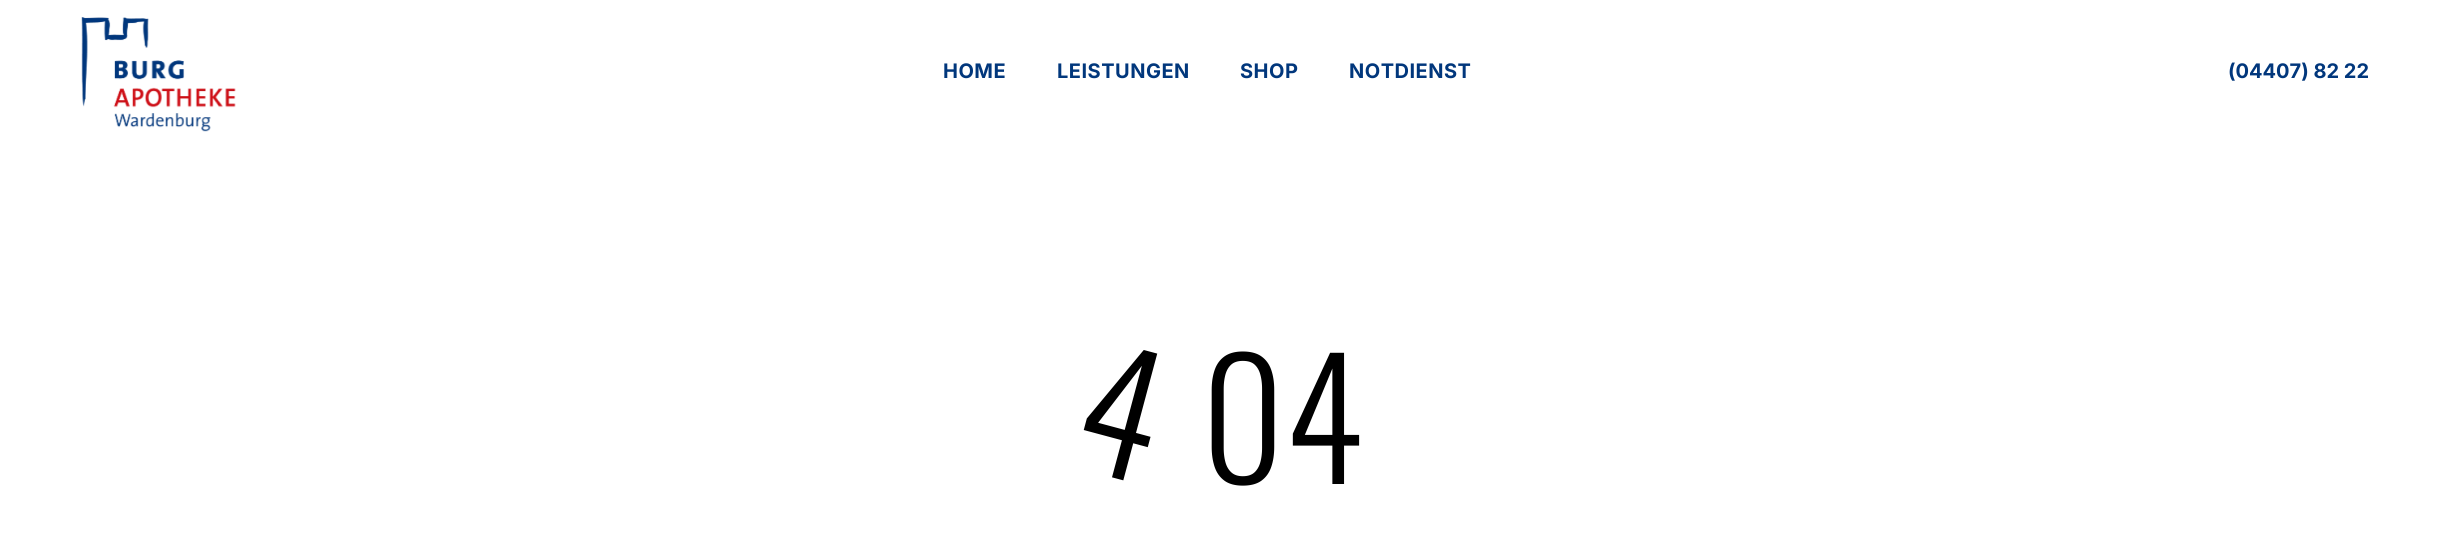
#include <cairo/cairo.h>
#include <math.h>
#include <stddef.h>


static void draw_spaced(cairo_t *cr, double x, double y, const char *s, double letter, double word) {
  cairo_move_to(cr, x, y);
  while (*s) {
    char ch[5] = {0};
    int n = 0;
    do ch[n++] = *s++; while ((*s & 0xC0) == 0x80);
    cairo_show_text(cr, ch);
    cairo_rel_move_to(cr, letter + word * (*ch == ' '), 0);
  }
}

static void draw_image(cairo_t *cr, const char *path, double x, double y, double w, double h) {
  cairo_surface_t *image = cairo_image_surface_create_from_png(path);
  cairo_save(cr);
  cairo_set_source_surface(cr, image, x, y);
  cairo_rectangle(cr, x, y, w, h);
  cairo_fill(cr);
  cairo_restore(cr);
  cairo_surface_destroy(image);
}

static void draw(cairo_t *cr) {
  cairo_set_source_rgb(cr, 1, 1, 1);
  cairo_paint(cr);
  draw_image(cr, "images/1.png", 81, 17, 155, 115);
  cairo_select_font_face(cr, "Inter", CAIRO_FONT_SLANT_NORMAL, CAIRO_FONT_WEIGHT_BOLD);
  cairo_set_font_size(cr, 20);
  cairo_set_source_rgb(cr, 1 / 255.0, 55 / 255.0, 124 / 255.0);
  draw_spaced(cr, 943, 78, "HOME", 0.5, 0);
  draw_spaced(cr, 1057, 78, "LEISTUNGEN", 0.5, 0);
  draw_spaced(cr, 1240, 78, "SHOP", 0.5, 0);
  draw_spaced(cr, 1349, 78, "NOTDIENST", 0.5, 0);
  cairo_move_to(cr, 2228, 78);
  cairo_show_text(cr, "(04407) 82 22");
  cairo_select_font_face(cr, "Oswald Light", CAIRO_FONT_SLANT_NORMAL, CAIRO_FONT_WEIGHT_NORMAL);
  cairo_set_font_size(cr, 162);
  cairo_set_source_rgb(cr, 0, 0, 0);
  cairo_save(cr);
  cairo_translate(cr, 1066, 465);
  cairo_rotate(cr, 15 * M_PI / 180);
  cairo_move_to(cr, 0, 0);
  cairo_show_text(cr, "4");
  cairo_restore(cr);
  cairo_move_to(cr, 1201, 484);
  cairo_show_text(cr, "04");
}

int main(void) {
  cairo_surface_t *surface = cairo_image_surface_create(CAIRO_FORMAT_RGB24, 2453, 549);
  cairo_t *cr = cairo_create(surface);
  cairo_font_options_t *options = cairo_font_options_create();
  cairo_font_options_set_hint_metrics(options, CAIRO_HINT_METRICS_OFF);
  cairo_font_options_set_hint_style(options, CAIRO_HINT_STYLE_NONE);
  cairo_set_font_options(cr, options);
  cairo_set_miter_limit(cr, 4);
  draw(cr);
  cairo_surface_write_to_png(surface, "out.png");
  cairo_font_options_destroy(options);
  cairo_destroy(cr);
  cairo_surface_destroy(surface);
  return 0;
}
